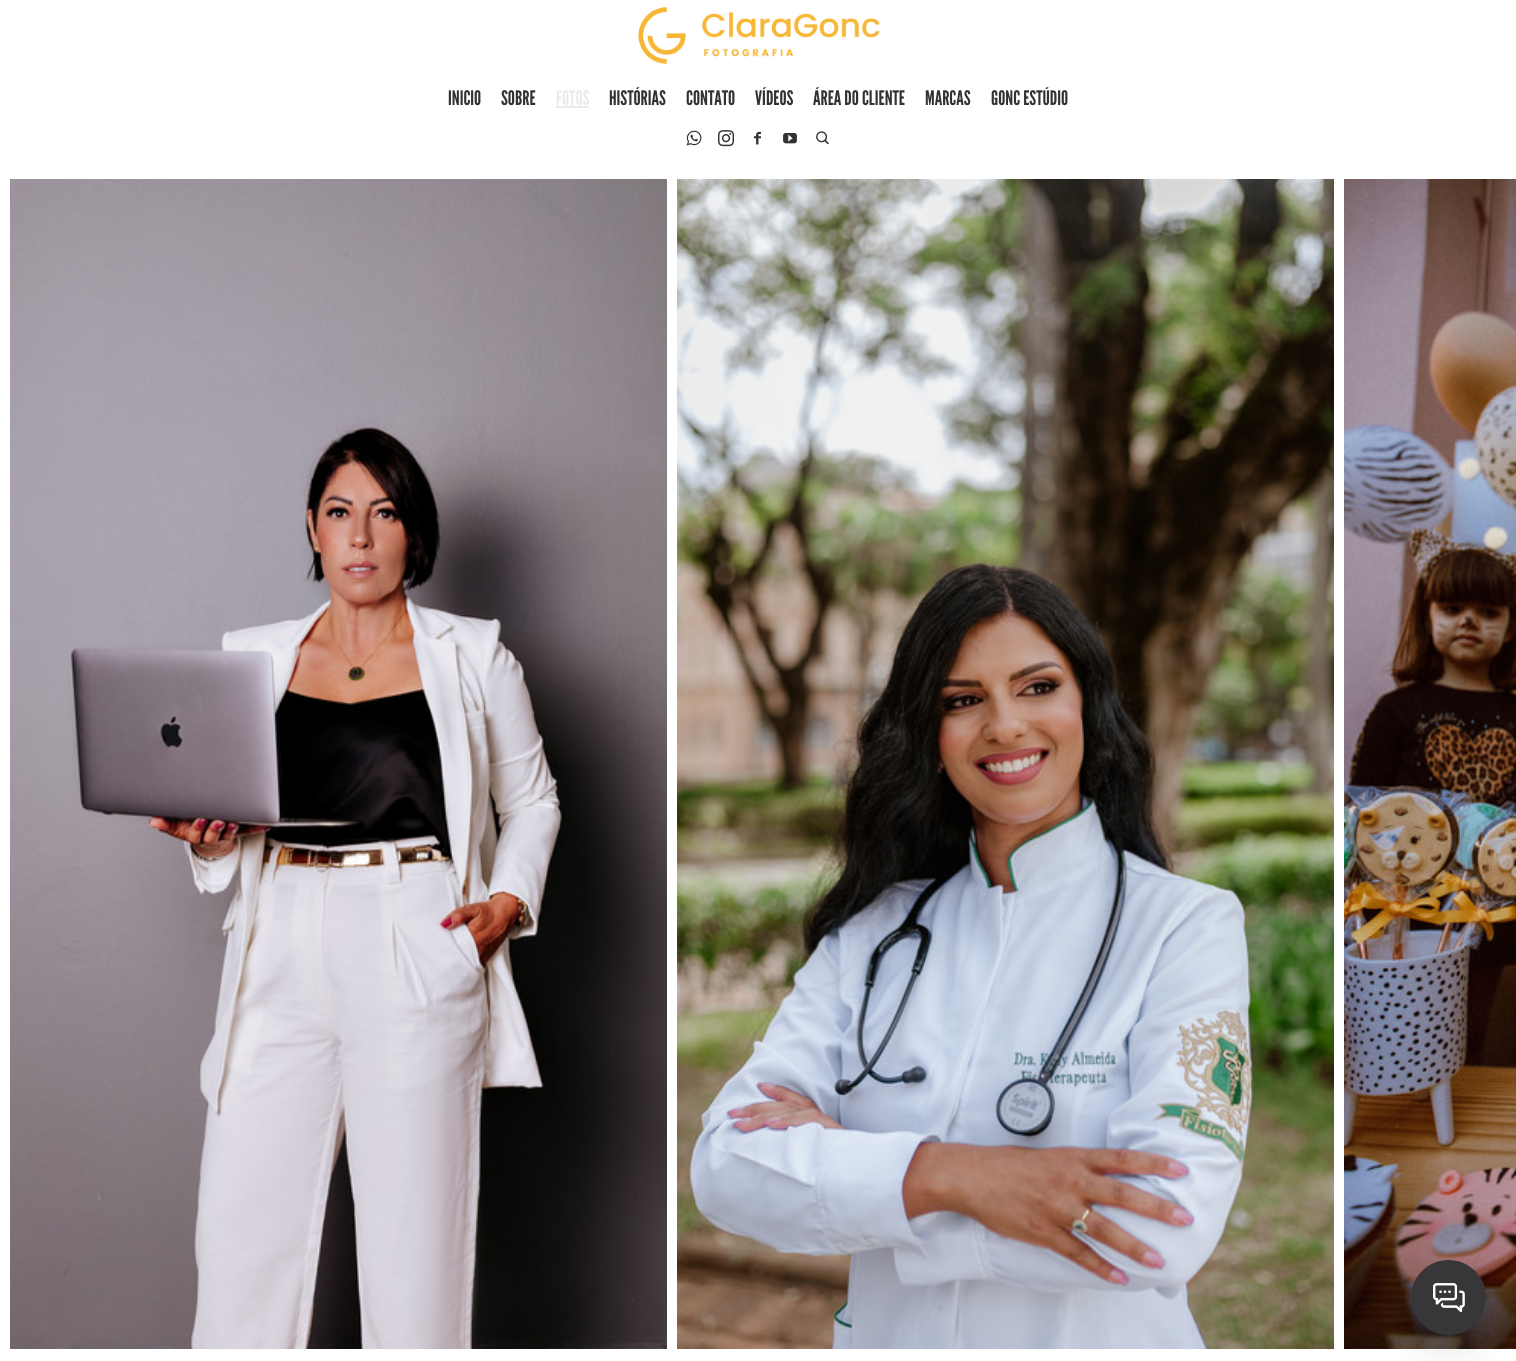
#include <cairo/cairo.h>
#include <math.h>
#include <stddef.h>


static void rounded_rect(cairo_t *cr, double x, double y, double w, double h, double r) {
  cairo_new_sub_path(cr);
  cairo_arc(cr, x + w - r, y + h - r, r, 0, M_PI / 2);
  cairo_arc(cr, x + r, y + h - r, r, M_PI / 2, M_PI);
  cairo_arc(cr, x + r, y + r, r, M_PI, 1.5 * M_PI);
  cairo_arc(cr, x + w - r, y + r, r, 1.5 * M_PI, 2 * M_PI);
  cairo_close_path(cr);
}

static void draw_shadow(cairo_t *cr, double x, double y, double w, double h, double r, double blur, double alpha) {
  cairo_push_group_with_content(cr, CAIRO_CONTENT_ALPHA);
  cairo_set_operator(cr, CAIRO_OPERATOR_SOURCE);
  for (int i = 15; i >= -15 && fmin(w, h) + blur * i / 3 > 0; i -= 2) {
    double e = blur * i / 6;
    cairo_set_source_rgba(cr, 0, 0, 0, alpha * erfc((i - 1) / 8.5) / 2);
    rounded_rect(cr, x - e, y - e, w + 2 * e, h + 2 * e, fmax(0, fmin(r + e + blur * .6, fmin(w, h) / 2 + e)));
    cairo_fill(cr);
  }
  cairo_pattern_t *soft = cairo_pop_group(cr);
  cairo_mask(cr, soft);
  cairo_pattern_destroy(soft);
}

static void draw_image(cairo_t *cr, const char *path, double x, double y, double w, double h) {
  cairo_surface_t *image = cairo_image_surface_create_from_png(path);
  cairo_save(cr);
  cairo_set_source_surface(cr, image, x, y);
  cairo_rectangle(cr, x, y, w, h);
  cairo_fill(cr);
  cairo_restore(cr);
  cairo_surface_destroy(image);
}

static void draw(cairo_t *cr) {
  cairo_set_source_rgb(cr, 1, 1, 1);
  cairo_paint(cr);
  draw_image(cr, "images/1.png", 638, 7, 242, 57);
  cairo_set_source_rgb(cr, 234 / 255.0, 234 / 255.0, 234 / 255.0);
  cairo_rectangle(cr, 556, 106, 33, 2);
  cairo_fill(cr);
  draw_image(cr, "images/2.png", 686, 130, 16, 16);
  draw_image(cr, "images/3.png", 718, 130, 16, 17);
  draw_image(cr, "images/4.png", 753, 131, 8, 14);
  draw_image(cr, "images/5.png", 783, 133, 14, 11);
  draw_image(cr, "images/6.png", 816, 131, 13, 14);
  draw_image(cr, "images/7.png", 10, 179, 657, 1170);
  draw_image(cr, "images/8.png", 677, 179, 657, 1170);
  draw_image(cr, "images/9.png", 1344, 179, 172, 1170);
  cairo_set_source_rgb(cr, 0, 0, 0);
  draw_shadow(cr, 1411, 1276, 75, 75, 37.5, 16, 0.1);
  cairo_set_source_rgb(cr, 55 / 255.0, 55 / 255.0, 57 / 255.0);
  cairo_arc(cr, 1448.5, 1297.5, 37.5, 0, 2 * M_PI);
  cairo_fill(cr);
  draw_image(cr, "images/10.png", 1433, 1283, 32, 30);
  cairo_select_font_face(cr, "League Gothic", CAIRO_FONT_SLANT_NORMAL, CAIRO_FONT_WEIGHT_NORMAL);
  cairo_set_font_size(cr, 20);
  cairo_set_source_rgb(cr, 50 / 255.0, 50 / 255.0, 50 / 255.0);
  cairo_move_to(cr, 448, 105);
  cairo_show_text(cr, "INICIO");
  cairo_move_to(cr, 501, 105);
  cairo_show_text(cr, "SOBRE");
  cairo_set_source_rgb(cr, 234 / 255.0, 234 / 255.0, 234 / 255.0);
  cairo_move_to(cr, 556, 105);
  cairo_show_text(cr, "FOTOS");
  cairo_set_source_rgb(cr, 50 / 255.0, 50 / 255.0, 50 / 255.0);
  cairo_move_to(cr, 609, 105);
  cairo_show_text(cr, "HISTÓRIAS");
  cairo_move_to(cr, 686, 105);
  cairo_show_text(cr, "CONTATO");
  cairo_move_to(cr, 755, 105);
  cairo_show_text(cr, "VÍDEOS");
  cairo_move_to(cr, 813, 105);
  cairo_show_text(cr, "ÁREA DO CLIENTE");
  cairo_move_to(cr, 925, 105);
  cairo_show_text(cr, "MARCAS");
  cairo_move_to(cr, 991, 105);
  cairo_show_text(cr, "GONC ESTÚDIO");
}

int main(void) {
  cairo_surface_t *surface = cairo_image_surface_create(CAIRO_FORMAT_RGB24, 1516, 1361);
  cairo_t *cr = cairo_create(surface);
  cairo_font_options_t *options = cairo_font_options_create();
  cairo_font_options_set_hint_metrics(options, CAIRO_HINT_METRICS_OFF);
  cairo_font_options_set_hint_style(options, CAIRO_HINT_STYLE_NONE);
  cairo_set_font_options(cr, options);
  cairo_set_miter_limit(cr, 4);
  draw(cr);
  cairo_surface_write_to_png(surface, "out.png");
  cairo_font_options_destroy(options);
  cairo_destroy(cr);
  cairo_surface_destroy(surface);
  return 0;
}
